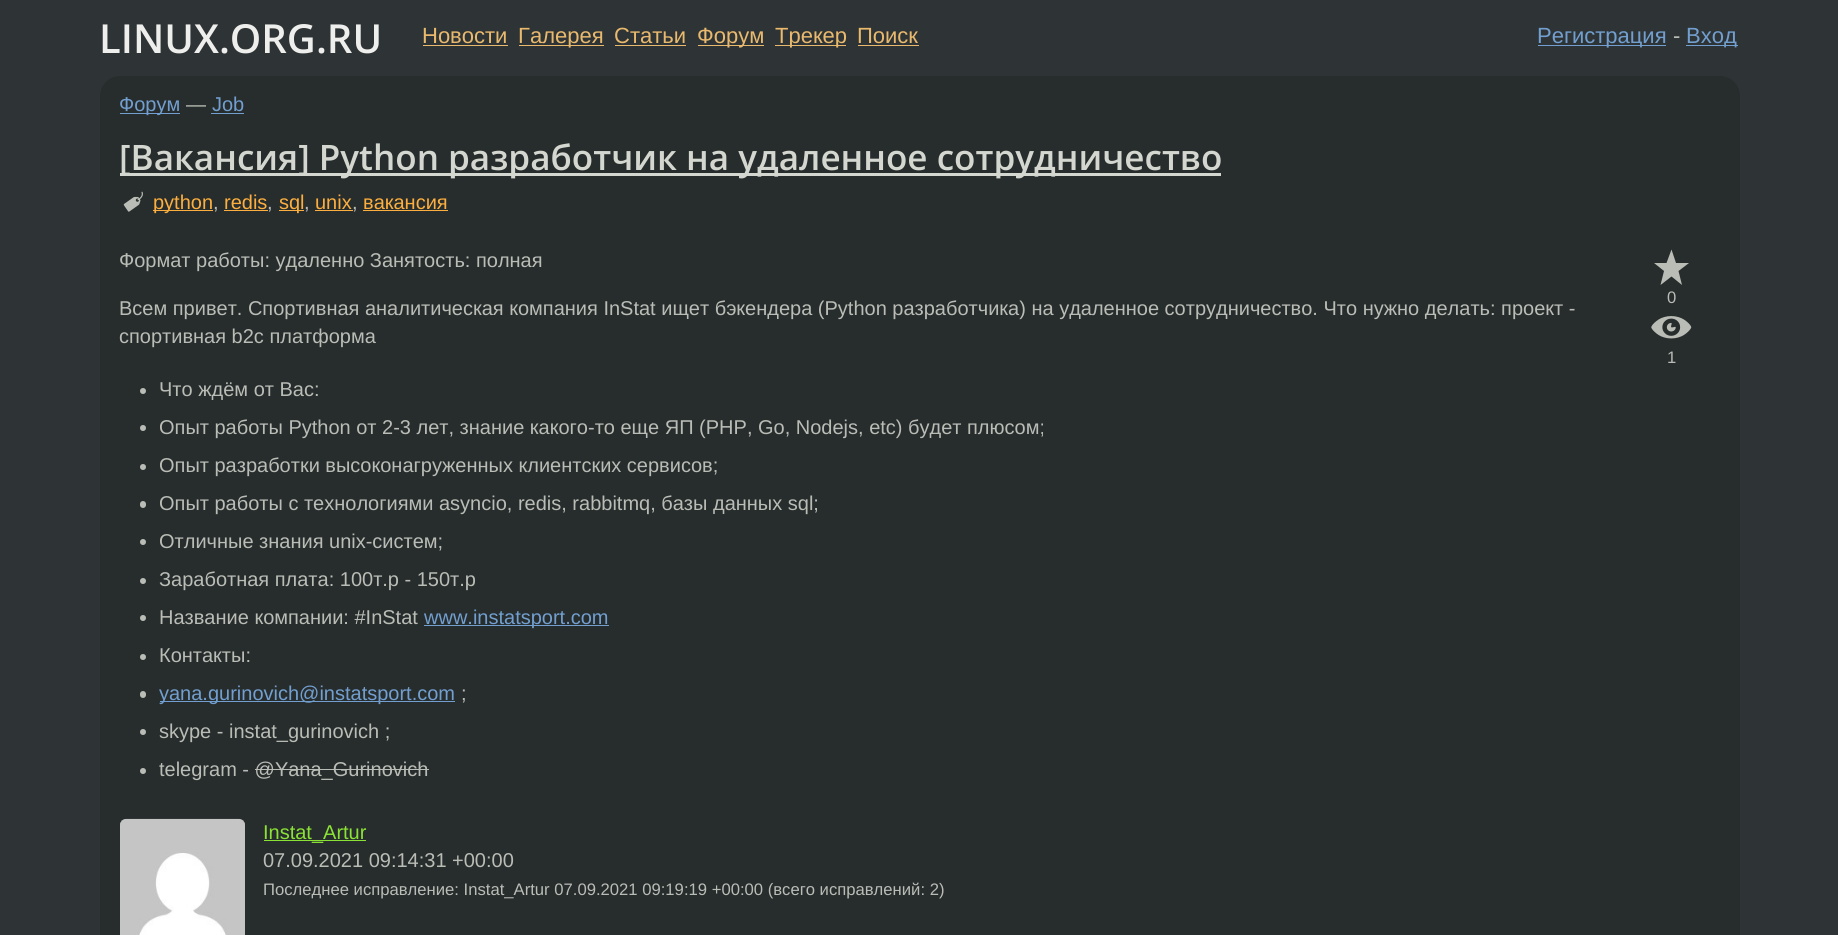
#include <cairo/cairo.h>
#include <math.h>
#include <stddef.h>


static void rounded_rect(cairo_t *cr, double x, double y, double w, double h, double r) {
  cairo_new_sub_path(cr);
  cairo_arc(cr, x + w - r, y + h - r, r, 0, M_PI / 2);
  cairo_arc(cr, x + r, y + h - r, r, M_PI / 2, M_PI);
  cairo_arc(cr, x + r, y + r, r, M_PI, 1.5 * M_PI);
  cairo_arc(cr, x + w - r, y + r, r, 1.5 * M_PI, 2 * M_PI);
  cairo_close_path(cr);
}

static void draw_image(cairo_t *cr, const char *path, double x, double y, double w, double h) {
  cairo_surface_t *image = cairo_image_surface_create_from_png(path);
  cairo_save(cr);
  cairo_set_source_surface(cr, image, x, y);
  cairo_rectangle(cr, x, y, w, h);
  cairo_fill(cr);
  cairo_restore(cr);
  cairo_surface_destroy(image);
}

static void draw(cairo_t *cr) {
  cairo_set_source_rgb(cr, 46 / 255.0, 52 / 255.0, 54 / 255.0);
  cairo_paint(cr);
  cairo_set_source_rgb(cr, 233 / 255.0, 185 / 255.0, 110 / 255.0);
  cairo_rectangle(cr, 423, 45, 85, 1);
  cairo_fill(cr);
  cairo_rectangle(cr, 519, 45, 85, 1);
  cairo_fill(cr);
  cairo_rectangle(cr, 615, 45, 71, 1);
  cairo_fill(cr);
  cairo_rectangle(cr, 698, 45, 66, 1);
  cairo_fill(cr);
  cairo_rectangle(cr, 775, 45, 71, 1);
  cairo_fill(cr);
  cairo_rectangle(cr, 858, 45, 61, 1);
  cairo_fill(cr);
  cairo_set_source_rgb(cr, 114 / 255.0, 159 / 255.0, 207 / 255.0);
  cairo_rectangle(cr, 1538, 45, 128, 1);
  cairo_fill(cr);
  cairo_rectangle(cr, 1686, 45, 52, 1);
  cairo_fill(cr);
  cairo_set_source_rgb(cr, 39 / 255.0, 44 / 255.0, 45 / 255.0);
  rounded_rect(cr, 100, 76, 1640, 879, 20);
  cairo_fill(cr);
  cairo_set_source_rgb(cr, 114 / 255.0, 159 / 255.0, 207 / 255.0);
  cairo_rectangle(cr, 120, 113, 60, 1);
  cairo_fill(cr);
  cairo_rectangle(cr, 211, 113, 33, 1);
  cairo_fill(cr);
  cairo_set_source_rgb(cr, 211 / 255.0, 215 / 255.0, 207 / 255.0);
  cairo_rectangle(cr, 120, 173, 1101, 3);
  cairo_fill(cr);
  draw_image(cr, "images/1.png", 123, 191, 20, 21);
  cairo_set_source_rgb(cr, 252 / 255.0, 175 / 255.0, 62 / 255.0);
  cairo_rectangle(cr, 153, 210, 60, 1);
  cairo_fill(cr);
  cairo_rectangle(cr, 224, 210, 44, 1);
  cairo_fill(cr);
  cairo_rectangle(cr, 279, 210, 25, 1);
  cairo_fill(cr);
  cairo_rectangle(cr, 315, 210, 38, 1);
  cairo_fill(cr);
  cairo_rectangle(cr, 363, 210, 85, 1);
  cairo_fill(cr);
  cairo_set_source_rgb(cr, 186 / 255.0, 189 / 255.0, 182 / 255.0);
  cairo_arc(cr, 143, 391, 3, 0, 2 * M_PI);
  cairo_fill(cr);
  cairo_arc(cr, 143, 428, 3, 0, 2 * M_PI);
  cairo_fill(cr);
  cairo_arc(cr, 143, 467, 3, 0, 2 * M_PI);
  cairo_fill(cr);
  rounded_rect(cr, 140, 501, 6, 7, 3);
  cairo_fill(cr);
  cairo_arc(cr, 143, 542, 3, 0, 2 * M_PI);
  cairo_fill(cr);
  cairo_arc(cr, 143, 581, 3, 0, 2 * M_PI);
  cairo_fill(cr);
  cairo_arc(cr, 143, 618, 3, 0, 2 * M_PI);
  cairo_fill(cr);
  cairo_set_source_rgb(cr, 114 / 255.0, 159 / 255.0, 207 / 255.0);
  cairo_rectangle(cr, 424, 625, 185, 1);
  cairo_fill(cr);
  cairo_set_source_rgb(cr, 186 / 255.0, 189 / 255.0, 182 / 255.0);
  cairo_arc(cr, 143, 657, 3, 0, 2 * M_PI);
  cairo_fill(cr);
  rounded_rect(cr, 140, 691, 6, 7, 3);
  cairo_fill(cr);
  cairo_set_source_rgb(cr, 114 / 255.0, 159 / 255.0, 207 / 255.0);
  cairo_rectangle(cr, 160, 701, 295, 1);
  cairo_fill(cr);
  cairo_set_source_rgb(cr, 186 / 255.0, 189 / 255.0, 182 / 255.0);
  cairo_arc(cr, 143, 732, 3, 0, 2 * M_PI);
  cairo_fill(cr);
  cairo_arc(cr, 143, 771, 3, 0, 2 * M_PI);
  cairo_fill(cr);
  cairo_rectangle(cr, 255, 769, 174, 1);
  cairo_fill(cr);
  cairo_new_path(cr);
  cairo_move_to(cr, 1671.5, 249.5);
  cairo_line_to(cr, 1676, 263);
  cairo_line_to(cr, 1689, 263);
  cairo_line_to(cr, 1678.5, 271);
  cairo_line_to(cr, 1682, 285);
  cairo_line_to(cr, 1671.5, 276.5);
  cairo_line_to(cr, 1660.5, 285);
  cairo_line_to(cr, 1664, 271);
  cairo_line_to(cr, 1654, 263);
  cairo_line_to(cr, 1666.5, 263);
  cairo_close_path(cr);
  cairo_fill(cr);
  draw_image(cr, "images/2.png", 1651, 316, 41, 23);
  draw_image(cr, "images/3.png", 120, 818, 125, 117);
  cairo_set_source_rgb(cr, 138 / 255.0, 226 / 255.0, 52 / 255.0);
  cairo_rectangle(cr, 264, 840, 102, 1);
  cairo_fill(cr);
  cairo_select_font_face(cr, "Open Sans SemiBold", CAIRO_FONT_SLANT_NORMAL, CAIRO_FONT_WEIGHT_NORMAL);
  cairo_set_font_size(cr, 40);
  cairo_set_source_rgb(cr, 238 / 255.0, 238 / 255.0, 236 / 255.0);
  cairo_move_to(cr, 99, 53);
  cairo_show_text(cr, "LINUX.ORG.RU");
  cairo_select_font_face(cr, "Liberation Sans", CAIRO_FONT_SLANT_NORMAL, CAIRO_FONT_WEIGHT_NORMAL);
  cairo_set_font_size(cr, 22);
  cairo_set_source_rgb(cr, 233 / 255.0, 185 / 255.0, 110 / 255.0);
  cairo_move_to(cr, 422, 43);
  cairo_show_text(cr, "Новости");
  cairo_move_to(cr, 518, 43);
  cairo_show_text(cr, "Галерея");
  cairo_move_to(cr, 614, 43);
  cairo_show_text(cr, "Статьи");
  cairo_move_to(cr, 697, 43);
  cairo_show_text(cr, "Форум");
  cairo_move_to(cr, 775, 43);
  cairo_show_text(cr, "Трекер");
  cairo_move_to(cr, 857, 43);
  cairo_show_text(cr, "Поиск");
  cairo_set_source_rgb(cr, 114 / 255.0, 159 / 255.0, 207 / 255.0);
  cairo_move_to(cr, 1537, 43);
  cairo_show_text(cr, "Регистрация");
  cairo_set_source_rgb(cr, 186 / 255.0, 189 / 255.0, 182 / 255.0);
  cairo_move_to(cr, 1673, 43);
  cairo_show_text(cr, "-");
  cairo_set_source_rgb(cr, 114 / 255.0, 159 / 255.0, 207 / 255.0);
  cairo_move_to(cr, 1686, 43);
  cairo_show_text(cr, "Вход");
  cairo_set_font_size(cr, 20);
  cairo_move_to(cr, 119, 111);
  cairo_show_text(cr, "Форум");
  cairo_set_source_rgb(cr, 186 / 255.0, 189 / 255.0, 182 / 255.0);
  cairo_move_to(cr, 186, 111);
  cairo_show_text(cr, "—");
  cairo_set_source_rgb(cr, 114 / 255.0, 159 / 255.0, 207 / 255.0);
  cairo_move_to(cr, 212, 111);
  cairo_show_text(cr, "Job");
  cairo_select_font_face(cr, "Open Sans SemiBold", CAIRO_FONT_SLANT_NORMAL, CAIRO_FONT_WEIGHT_NORMAL);
  cairo_set_font_size(cr, 35.05);
  cairo_set_source_rgb(cr, 211 / 255.0, 215 / 255.0, 207 / 255.0);
  cairo_move_to(cr, 119, 170);
  cairo_show_text(cr, "[Вакансия] Python разработчик на удаленное сотрудничество");
  cairo_select_font_face(cr, "Liberation Sans", CAIRO_FONT_SLANT_NORMAL, CAIRO_FONT_WEIGHT_NORMAL);
  cairo_set_font_size(cr, 20);
  cairo_set_source_rgb(cr, 252 / 255.0, 175 / 255.0, 62 / 255.0);
  cairo_move_to(cr, 153, 209);
  cairo_show_text(cr, "python");
  cairo_set_source_rgb(cr, 186 / 255.0, 189 / 255.0, 182 / 255.0);
  cairo_move_to(cr, 213, 209);
  cairo_show_text(cr, ",");
  cairo_set_source_rgb(cr, 252 / 255.0, 175 / 255.0, 62 / 255.0);
  cairo_move_to(cr, 224, 209);
  cairo_show_text(cr, "redis");
  cairo_set_source_rgb(cr, 186 / 255.0, 189 / 255.0, 182 / 255.0);
  cairo_move_to(cr, 267, 209);
  cairo_show_text(cr, ",");
  cairo_set_source_rgb(cr, 252 / 255.0, 175 / 255.0, 62 / 255.0);
  cairo_move_to(cr, 279, 209);
  cairo_show_text(cr, "sql");
  cairo_set_source_rgb(cr, 186 / 255.0, 189 / 255.0, 182 / 255.0);
  cairo_move_to(cr, 304, 209);
  cairo_show_text(cr, ",");
  cairo_set_source_rgb(cr, 252 / 255.0, 175 / 255.0, 62 / 255.0);
  cairo_move_to(cr, 315, 209);
  cairo_show_text(cr, "unix");
  cairo_set_source_rgb(cr, 186 / 255.0, 189 / 255.0, 182 / 255.0);
  cairo_move_to(cr, 352, 209);
  cairo_show_text(cr, ",");
  cairo_set_source_rgb(cr, 252 / 255.0, 175 / 255.0, 62 / 255.0);
  cairo_move_to(cr, 363, 209);
  cairo_show_text(cr, "вакансия");
  cairo_set_source_rgb(cr, 186 / 255.0, 189 / 255.0, 182 / 255.0);
  cairo_move_to(cr, 119, 267);
  cairo_show_text(cr, "Формат работы: удаленно Занятость: полная");
  cairo_move_to(cr, 119, 315);
  cairo_show_text(cr, "Всем привет. Спортивная аналитическая компания InStat ищет бэкендера (Python разработчика) на удаленное сотрудничество. Что нужно делать: проект -");
  cairo_move_to(cr, 119, 343);
  cairo_show_text(cr, "спортивная b2c платформа");
  cairo_move_to(cr, 159, 396);
  cairo_show_text(cr, "Что ждём от Вас:");
  cairo_move_to(cr, 159, 434);
  cairo_show_text(cr, "Опыт работы Python от 2-3 лет, знание какого-то еще ЯП (PHP, Go, Nodejs, etc) будет плюсом;");
  cairo_move_to(cr, 159, 472);
  cairo_show_text(cr, "Опыт разработки высоконагруженных клиентских сервисов;");
  cairo_move_to(cr, 159, 510);
  cairo_show_text(cr, "Опыт работы с технологиями asyncio, redis, rabbitmq, базы данных sql;");
  cairo_move_to(cr, 159, 548);
  cairo_show_text(cr, "Отличные знания unix-систем;");
  cairo_move_to(cr, 159, 586);
  cairo_show_text(cr, "Заработная плата: 100т.р - 150т.р");
  cairo_move_to(cr, 159, 624);
  cairo_show_text(cr, "Название компании: #InStat");
  cairo_set_source_rgb(cr, 114 / 255.0, 159 / 255.0, 207 / 255.0);
  cairo_move_to(cr, 424, 624);
  cairo_show_text(cr, "www.instatsport.com");
  cairo_set_source_rgb(cr, 186 / 255.0, 189 / 255.0, 182 / 255.0);
  cairo_move_to(cr, 159, 662);
  cairo_show_text(cr, "Контакты:");
  cairo_set_source_rgb(cr, 114 / 255.0, 159 / 255.0, 207 / 255.0);
  cairo_move_to(cr, 159, 700);
  cairo_show_text(cr, "yana.gurinovich@instatsport.com");
  cairo_set_source_rgb(cr, 186 / 255.0, 189 / 255.0, 182 / 255.0);
  cairo_move_to(cr, 461, 700);
  cairo_show_text(cr, ";");
  cairo_move_to(cr, 159, 738);
  cairo_show_text(cr, "skype - instat_gurinovich ;");
  cairo_move_to(cr, 159, 776);
  cairo_show_text(cr, "telegram - @Yana_Gurinovich");
  cairo_set_font_size(cr, 16.65);
  cairo_move_to(cr, 1667, 303);
  cairo_show_text(cr, "0");
  cairo_move_to(cr, 1667, 363);
  cairo_show_text(cr, "1");
  cairo_set_font_size(cr, 20);
  cairo_set_source_rgb(cr, 138 / 255.0, 226 / 255.0, 52 / 255.0);
  cairo_move_to(cr, 263, 839);
  cairo_show_text(cr, "Instat_Artur");
  cairo_set_source_rgb(cr, 186 / 255.0, 189 / 255.0, 182 / 255.0);
  cairo_move_to(cr, 263, 867);
  cairo_show_text(cr, "07.09.2021 09:14:31 +00:00");
  cairo_set_font_size(cr, 16.65);
  cairo_move_to(cr, 263, 895);
  cairo_show_text(cr, "Последнее исправление: Instat_Artur 07.09.2021 09:19:19 +00:00 (всего исправлений: 2)");
}

int main(void) {
  cairo_surface_t *surface = cairo_image_surface_create(CAIRO_FORMAT_RGB24, 1838, 935);
  cairo_t *cr = cairo_create(surface);
  cairo_font_options_t *options = cairo_font_options_create();
  cairo_font_options_set_hint_metrics(options, CAIRO_HINT_METRICS_OFF);
  cairo_font_options_set_hint_style(options, CAIRO_HINT_STYLE_NONE);
  cairo_set_font_options(cr, options);
  cairo_set_miter_limit(cr, 4);
  draw(cr);
  cairo_surface_write_to_png(surface, "out.png");
  cairo_font_options_destroy(options);
  cairo_destroy(cr);
  cairo_surface_destroy(surface);
  return 0;
}
